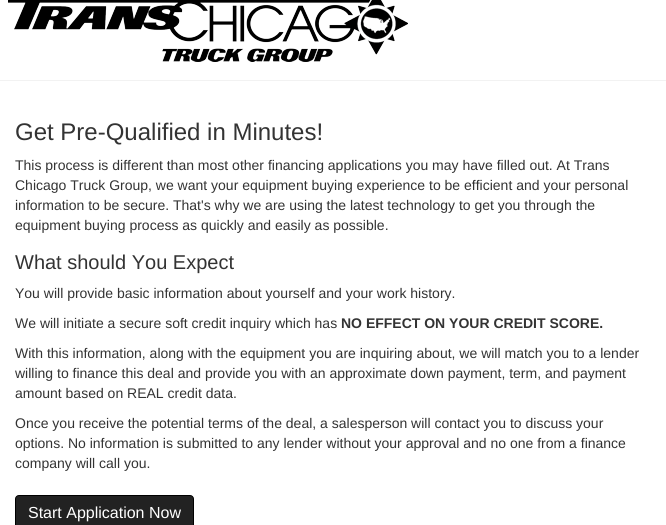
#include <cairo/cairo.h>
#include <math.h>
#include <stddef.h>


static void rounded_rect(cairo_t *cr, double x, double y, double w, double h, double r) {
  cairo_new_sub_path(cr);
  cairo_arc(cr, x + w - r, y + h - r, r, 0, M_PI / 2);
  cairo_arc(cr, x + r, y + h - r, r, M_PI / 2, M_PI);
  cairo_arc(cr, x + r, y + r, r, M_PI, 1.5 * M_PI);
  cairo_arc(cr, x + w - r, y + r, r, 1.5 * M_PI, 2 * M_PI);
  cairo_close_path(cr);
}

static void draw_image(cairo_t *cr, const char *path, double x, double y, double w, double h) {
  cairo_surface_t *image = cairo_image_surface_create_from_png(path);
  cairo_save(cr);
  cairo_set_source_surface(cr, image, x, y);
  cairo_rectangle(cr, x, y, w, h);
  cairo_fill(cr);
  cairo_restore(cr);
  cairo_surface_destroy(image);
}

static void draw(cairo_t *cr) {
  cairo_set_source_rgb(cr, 1, 1, 1);
  cairo_paint(cr);
  draw_image(cr, "images/1.png", 8, 0, 400, 62);
  cairo_set_source_rgb(cr, 242 / 255.0, 242 / 255.0, 242 / 255.0);
  cairo_rectangle(cr, 0, 80, 666, 1);
  cairo_fill(cr);
  cairo_set_source_rgb(cr, 34 / 255.0, 34 / 255.0, 34 / 255.0);
  rounded_rect(cr, 15.5, 495.5, 178, 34, 3.5);
  cairo_fill_preserve(cr);
  cairo_set_source_rgb(cr, 0, 0, 0);
  cairo_set_line_width(cr, 1);
  cairo_stroke(cr);
  cairo_select_font_face(cr, "Liberation Sans", CAIRO_FONT_SLANT_NORMAL, CAIRO_FONT_WEIGHT_NORMAL);
  cairo_set_font_size(cr, 24);
  cairo_set_source_rgb(cr, 51 / 255.0, 51 / 255.0, 51 / 255.0);
  cairo_move_to(cr, 15, 140);
  cairo_show_text(cr, "Get Pre-Qualified in Minutes!");
  cairo_set_font_size(cr, 14);
  cairo_move_to(cr, 15, 170);
  cairo_show_text(cr, "This process is different than most other financing applications you may have filled out. At Trans");
  cairo_move_to(cr, 15, 190);
  cairo_show_text(cr, "Chicago Truck Group, we want your equipment buying experience to be efficient and your personal");
  cairo_move_to(cr, 15, 210);
  cairo_show_text(cr, "information to be secure. That's why we are using the latest technology to get you through the");
  cairo_move_to(cr, 15, 230);
  cairo_show_text(cr, "equipment buying process as quickly and easily as possible.");
  cairo_set_font_size(cr, 20);
  cairo_move_to(cr, 15, 269);
  cairo_show_text(cr, "What should You Expect");
  cairo_set_font_size(cr, 14);
  cairo_move_to(cr, 15, 298);
  cairo_show_text(cr, "You will provide basic information about yourself and your work history.");
  cairo_move_to(cr, 15, 328);
  cairo_show_text(cr, "We will initiate a secure soft credit inquiry which has");
  cairo_select_font_face(cr, "Liberation Sans", CAIRO_FONT_SLANT_NORMAL, CAIRO_FONT_WEIGHT_BOLD);
  cairo_move_to(cr, 341, 328);
  cairo_show_text(cr, "NO EFFECT ON YOUR CREDIT SCORE.");
  cairo_select_font_face(cr, "Liberation Sans", CAIRO_FONT_SLANT_NORMAL, CAIRO_FONT_WEIGHT_NORMAL);
  cairo_move_to(cr, 15, 358);
  cairo_show_text(cr, "With this information, along with the equipment you are inquiring about, we will match you to a lender");
  cairo_move_to(cr, 15, 378);
  cairo_show_text(cr, "willing to finance this deal and provide you with an approximate down payment, term, and payment");
  cairo_move_to(cr, 15, 398);
  cairo_show_text(cr, "amount based on REAL credit data.");
  cairo_move_to(cr, 15, 428);
  cairo_show_text(cr, "Once you receive the potential terms of the deal, a salesperson will contact you to discuss your");
  cairo_move_to(cr, 15, 448);
  cairo_show_text(cr, "options. No information is submitted to any lender without your approval and no one from a finance");
  cairo_move_to(cr, 15, 468);
  cairo_show_text(cr, "company will call you.");
  cairo_set_font_size(cr, 16);
  cairo_set_source_rgb(cr, 1, 1, 1);
  cairo_move_to(cr, 28, 518);
  cairo_show_text(cr, "Start Application Now");
}

int main(void) {
  cairo_surface_t *surface = cairo_image_surface_create(CAIRO_FORMAT_RGB24, 666, 525);
  cairo_t *cr = cairo_create(surface);
  cairo_font_options_t *options = cairo_font_options_create();
  cairo_font_options_set_hint_metrics(options, CAIRO_HINT_METRICS_OFF);
  cairo_font_options_set_hint_style(options, CAIRO_HINT_STYLE_NONE);
  cairo_set_font_options(cr, options);
  cairo_set_miter_limit(cr, 4);
  draw(cr);
  cairo_surface_write_to_png(surface, "out.png");
  cairo_font_options_destroy(options);
  cairo_destroy(cr);
  cairo_surface_destroy(surface);
  return 0;
}
